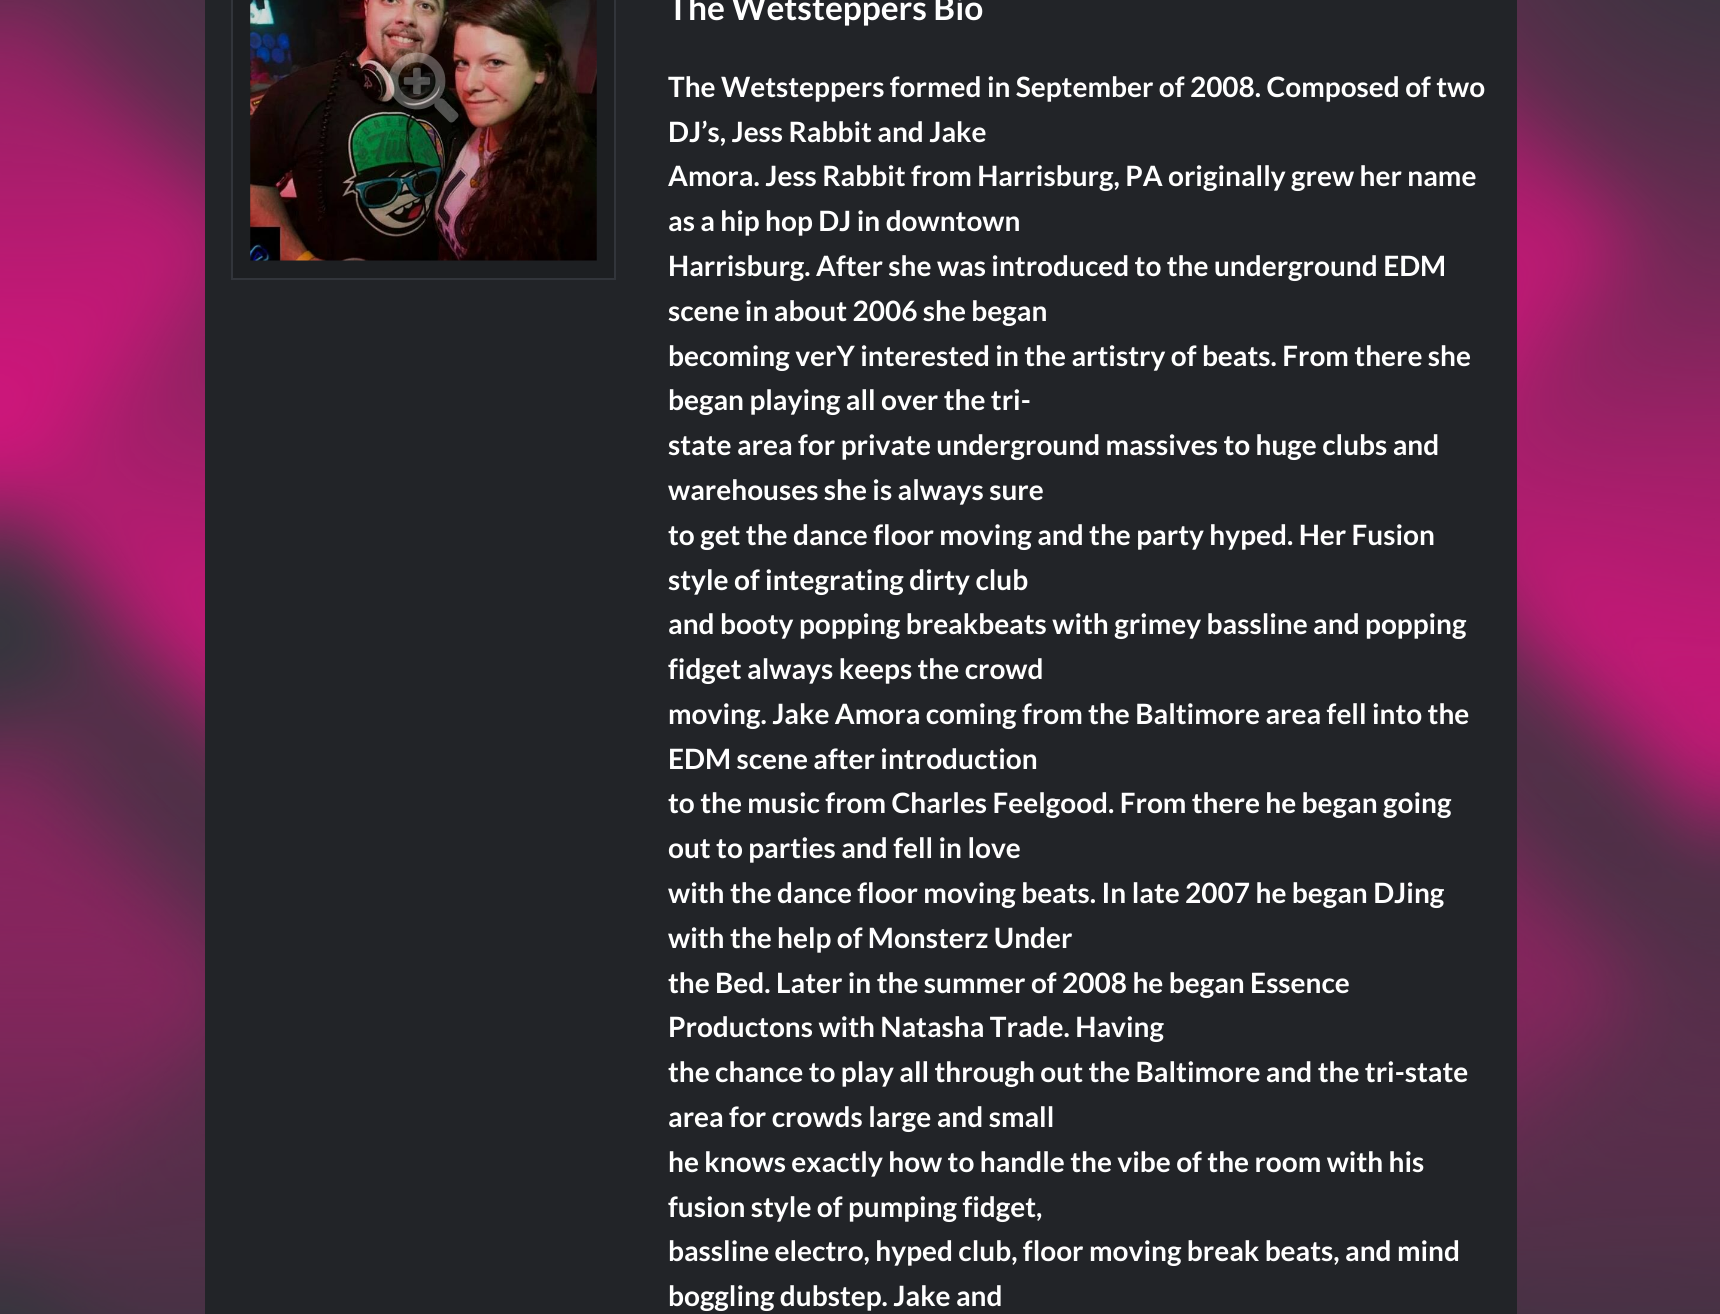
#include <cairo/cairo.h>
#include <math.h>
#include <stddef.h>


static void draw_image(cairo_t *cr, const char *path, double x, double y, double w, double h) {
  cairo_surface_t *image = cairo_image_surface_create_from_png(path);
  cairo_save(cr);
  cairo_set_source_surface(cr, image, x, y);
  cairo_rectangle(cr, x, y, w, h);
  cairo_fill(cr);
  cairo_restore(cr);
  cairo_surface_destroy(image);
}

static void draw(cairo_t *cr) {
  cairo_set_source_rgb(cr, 51 / 255.0, 54 / 255.0, 60 / 255.0);
  cairo_paint(cr);
  draw_image(cr, "images/1.png", 0, 0, 1720, 1314);
  cairo_set_source_rgb(cr, 34 / 255.0, 36 / 255.0, 40 / 255.0);
  cairo_rectangle(cr, 205, 0, 1312, 1314);
  cairo_fill(cr);
  cairo_rectangle(cr, 232, -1, 383, 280);
  cairo_set_source_rgb(cr, 50 / 255.0, 53 / 255.0, 59 / 255.0);
  cairo_stroke(cr);
  draw_image(cr, "images/3.png", 250, 0, 347, 261);
  cairo_set_source_rgba(cr, 0, 0, 0, 0.15);
  cairo_rectangle(cr, 233, 0, 381, 278);
  cairo_fill(cr);
  draw_image(cr, "images/2.png", 388, 52, 71, 71);
  cairo_select_font_face(cr, "Lato", CAIRO_FONT_SLANT_NORMAL, CAIRO_FONT_WEIGHT_BOLD);
  cairo_set_font_size(cr, 33.5);
  cairo_set_source_rgb(cr, 1, 1, 1);
  cairo_move_to(cr, 668, 20);
  cairo_show_text(cr, "The Wetsteppers Bio");
  cairo_set_font_size(cr, 28);
  cairo_move_to(cr, 668, 97);
  cairo_show_text(cr, "The Wetsteppers formed in September of 2008. Composed of two");
  cairo_move_to(cr, 668, 142);
  cairo_show_text(cr, "DJ’s, Jess Rabbit and Jake");
  cairo_move_to(cr, 668, 186);
  cairo_show_text(cr, "Amora. Jess Rabbit from Harrisburg, PA originally grew her name");
  cairo_move_to(cr, 668, 231);
  cairo_show_text(cr, "as a hip hop DJ in downtown");
  cairo_move_to(cr, 668, 276);
  cairo_show_text(cr, "Harrisburg. After she was introduced to the underground EDM");
  cairo_move_to(cr, 668, 321);
  cairo_show_text(cr, "scene in about 2006 she began");
  cairo_move_to(cr, 668, 366);
  cairo_show_text(cr, "becoming verY interested in the artistry of beats. From there she");
  cairo_move_to(cr, 668, 410);
  cairo_show_text(cr, "began playing all over the tri-");
  cairo_move_to(cr, 668, 455);
  cairo_show_text(cr, "state area for private underground massives to huge clubs and");
  cairo_move_to(cr, 668, 500);
  cairo_show_text(cr, "warehouses she is always sure");
  cairo_move_to(cr, 668, 545);
  cairo_show_text(cr, "to get the dance floor moving and the party hyped. Her Fusion");
  cairo_move_to(cr, 668, 590);
  cairo_show_text(cr, "style of integrating dirty club");
  cairo_move_to(cr, 668, 634);
  cairo_show_text(cr, "and booty popping breakbeats with grimey bassline and popping");
  cairo_move_to(cr, 668, 679);
  cairo_show_text(cr, "fidget always keeps the crowd");
  cairo_move_to(cr, 668, 724);
  cairo_show_text(cr, "moving. Jake Amora coming from the Baltimore area fell into the");
  cairo_move_to(cr, 668, 769);
  cairo_show_text(cr, "EDM scene after introduction");
  cairo_move_to(cr, 668, 813);
  cairo_show_text(cr, "to the music from Charles Feelgood. From there he began going");
  cairo_move_to(cr, 668, 858);
  cairo_show_text(cr, "out to parties and fell in love");
  cairo_move_to(cr, 668, 903);
  cairo_show_text(cr, "with the dance floor moving beats. In late 2007 he began DJing");
  cairo_move_to(cr, 668, 948);
  cairo_show_text(cr, "with the help of Monsterz Under");
  cairo_move_to(cr, 668, 993);
  cairo_show_text(cr, "the Bed. Later in the summer of 2008 he began Essence");
  cairo_move_to(cr, 668, 1037);
  cairo_show_text(cr, "Productons with Natasha Trade. Having");
  cairo_move_to(cr, 668, 1082);
  cairo_show_text(cr, "the chance to play all through out the Baltimore and the tri-state");
  cairo_move_to(cr, 668, 1127);
  cairo_show_text(cr, "area for crowds large and small");
  cairo_move_to(cr, 668, 1172);
  cairo_show_text(cr, "he knows exactly how to handle the vibe of the room with his");
  cairo_move_to(cr, 668, 1217);
  cairo_show_text(cr, "fusion style of pumping fidget,");
  cairo_move_to(cr, 668, 1261);
  cairo_show_text(cr, "bassline electro, hyped club, floor moving break beats, and mind");
  cairo_move_to(cr, 668, 1306);
  cairo_show_text(cr, "boggling dubstep. Jake and");
}

int main(void) {
  cairo_surface_t *surface = cairo_image_surface_create(CAIRO_FORMAT_RGB24, 1720, 1314);
  cairo_t *cr = cairo_create(surface);
  cairo_font_options_t *options = cairo_font_options_create();
  cairo_font_options_set_hint_metrics(options, CAIRO_HINT_METRICS_OFF);
  cairo_font_options_set_hint_style(options, CAIRO_HINT_STYLE_NONE);
  cairo_set_font_options(cr, options);
  cairo_set_miter_limit(cr, 4);
  draw(cr);
  cairo_surface_write_to_png(surface, "out.png");
  cairo_font_options_destroy(options);
  cairo_destroy(cr);
  cairo_surface_destroy(surface);
  return 0;
}
